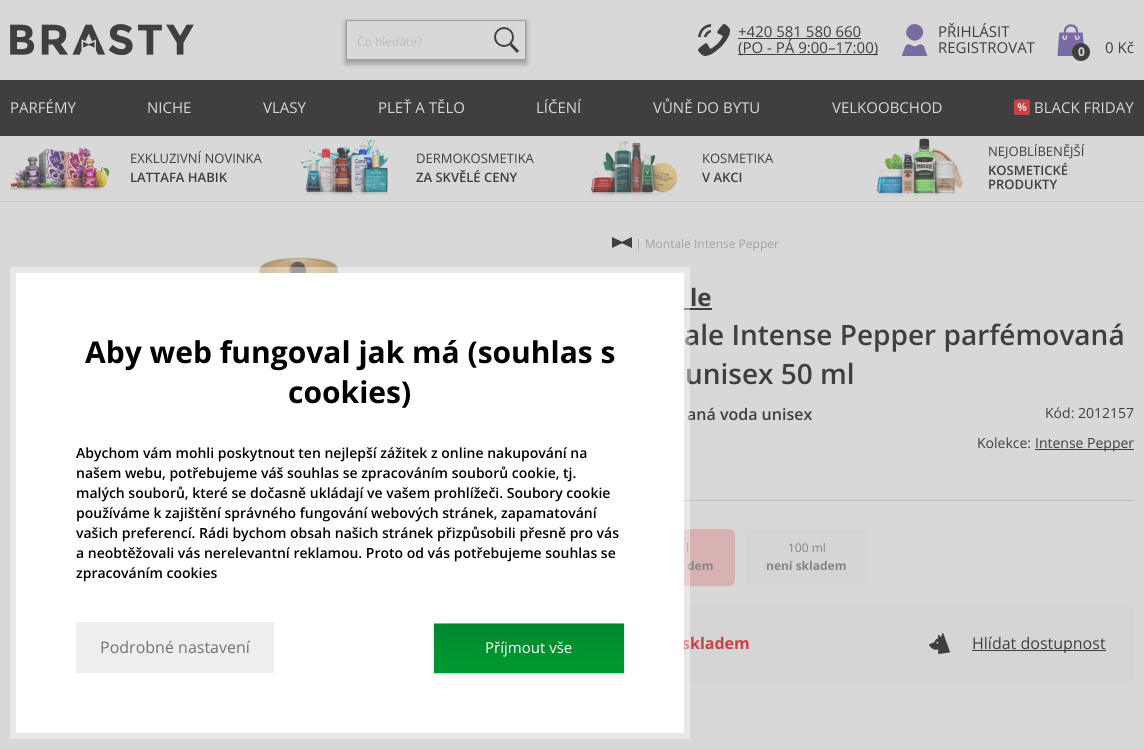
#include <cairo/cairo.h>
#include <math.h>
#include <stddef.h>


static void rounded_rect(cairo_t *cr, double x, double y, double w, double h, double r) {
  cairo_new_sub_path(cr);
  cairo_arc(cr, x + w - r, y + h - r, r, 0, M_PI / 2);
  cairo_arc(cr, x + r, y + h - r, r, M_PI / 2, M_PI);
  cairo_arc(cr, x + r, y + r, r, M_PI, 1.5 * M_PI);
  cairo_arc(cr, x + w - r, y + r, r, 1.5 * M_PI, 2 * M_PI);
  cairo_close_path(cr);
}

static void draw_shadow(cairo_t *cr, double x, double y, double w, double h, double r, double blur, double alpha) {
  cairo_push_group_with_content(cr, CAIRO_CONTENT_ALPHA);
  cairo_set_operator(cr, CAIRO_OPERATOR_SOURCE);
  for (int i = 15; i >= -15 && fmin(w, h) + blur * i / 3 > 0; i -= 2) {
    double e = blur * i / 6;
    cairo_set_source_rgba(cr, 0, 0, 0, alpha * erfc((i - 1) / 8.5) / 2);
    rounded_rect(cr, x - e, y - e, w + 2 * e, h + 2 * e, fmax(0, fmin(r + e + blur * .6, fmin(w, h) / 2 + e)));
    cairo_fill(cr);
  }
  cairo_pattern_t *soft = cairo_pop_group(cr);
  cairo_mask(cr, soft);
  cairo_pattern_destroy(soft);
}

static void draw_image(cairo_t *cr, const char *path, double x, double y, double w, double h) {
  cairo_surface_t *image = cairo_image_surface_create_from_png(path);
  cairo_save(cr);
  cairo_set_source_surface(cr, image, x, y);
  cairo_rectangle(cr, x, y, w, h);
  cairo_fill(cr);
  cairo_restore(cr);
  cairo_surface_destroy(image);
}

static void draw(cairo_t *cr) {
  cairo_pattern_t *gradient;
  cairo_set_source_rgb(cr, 216 / 255.0, 216 / 255.0, 216 / 255.0);
  cairo_paint(cr);
  draw_image(cr, "images/1.png", 10, 24, 184, 31);
  cairo_save(cr);
  cairo_set_fill_rule(cr, CAIRO_FILL_RULE_EVEN_ODD);
  cairo_new_path(cr);
  cairo_move_to(cr, 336, 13);
  cairo_line_to(cr, 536, 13);
  cairo_line_to(cr, 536, 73);
  cairo_line_to(cr, 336, 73);
  cairo_close_path(cr);
  cairo_move_to(cr, 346, 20);
  cairo_line_to(cr, 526, 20);
  cairo_line_to(cr, 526, 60);
  cairo_line_to(cr, 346, 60);
  cairo_close_path(cr);
  cairo_clip(cr);
  cairo_set_source_rgb(cr, 158 / 255.0, 158 / 255.0, 158 / 255.0);
  draw_shadow(cr, 345, 22, 182, 42, 0, 2.5, 1);
  cairo_restore(cr);
  cairo_rectangle(cr, 346.5, 20.5, 179, 39);
  cairo_set_source_rgb(cr, 158 / 255.0, 158 / 255.0, 158 / 255.0);
  cairo_set_line_width(cr, 1);
  cairo_stroke(cr);
  draw_image(cr, "images/2.png", 494, 27, 25, 26);
  draw_image(cr, "images/3.png", 698, 24, 32, 32);
  cairo_set_source_rgb(cr, 63 / 255.0, 63 / 255.0, 63 / 255.0);
  cairo_rectangle(cr, 738, 38, 123, 1);
  cairo_fill(cr);
  cairo_rectangle(cr, 738, 54, 140, 1);
  cairo_fill(cr);
  draw_image(cr, "images/4.png", 901, 24, 27, 32);
  draw_image(cr, "images/5.png", 1057, 24, 27, 32);
  cairo_arc(cr, 1081, 52, 9, 0, 2 * M_PI);
  cairo_fill(cr);
  cairo_rectangle(cr, 0, 80, 1144, 56);
  cairo_fill(cr);
  draw_image(cr, "images/6.png", 1014, 99, 16, 16);
  cairo_set_source_rgb(cr, 206 / 255.0, 206 / 255.0, 206 / 255.0);
  cairo_rectangle(cr, 0, 201, 1144, 1);
  cairo_fill(cr);
  draw_image(cr, "images/7.png", 10, 147, 100, 45);
  draw_image(cr, "images/8.png", 300, 139, 90, 57);
  draw_image(cr, "images/9.png", 591, 141, 87, 56);
  draw_image(cr, "images/10.png", 876, 138, 88, 59);
  draw_image(cr, "images/11.png", 134, 255, 260, 18);
  draw_image(cr, "images/12.png", 612, 237, 20, 11);
  cairo_set_source_rgb(cr, 63 / 255.0, 63 / 255.0, 63 / 255.0);
  cairo_rectangle(cr, 684, 308, 28, 2);
  cairo_fill(cr);
  cairo_rectangle(cr, 1035, 449, 99, 1);
  cairo_fill(cr);
  cairo_set_source_rgb(cr, 186 / 255.0, 186 / 255.0, 186 / 255.0);
  cairo_rectangle(cr, 684, 500, 450, 1);
  cairo_fill(cr);
  cairo_set_source_rgb(cr, 216 / 255.0, 178 / 255.0, 178 / 255.0);
  rounded_rect(cr, 612, 529, 123, 57, 6);
  cairo_fill(cr);
  cairo_set_source_rgb(cr, 213 / 255.0, 213 / 255.0, 213 / 255.0);
  rounded_rect(cr, 745, 529, 123, 57, 6);
  cairo_fill(cr);
  cairo_rectangle(cr, 684, 604, 450, 80);
  cairo_fill(cr);
  draw_image(cr, "images/13.png", 929, 633, 21, 21);
  cairo_set_source_rgb(cr, 63 / 255.0, 63 / 255.0, 63 / 255.0);
  cairo_rectangle(cr, 972, 650, 134, 1);
  cairo_fill(cr);
  cairo_select_font_face(cr, "Open Sans", CAIRO_FONT_SLANT_NORMAL, CAIRO_FONT_WEIGHT_NORMAL);
  cairo_set_font_size(cr, 12);
  cairo_set_source_rgb(cr, 186 / 255.0, 186 / 255.0, 186 / 255.0);
  cairo_move_to(cr, 357, 46);
  cairo_show_text(cr, "Co hledáte?");
  cairo_set_font_size(cr, 15);
  cairo_set_source_rgb(cr, 63 / 255.0, 63 / 255.0, 63 / 255.0);
  cairo_move_to(cr, 738, 37);
  cairo_show_text(cr, "+420 581 580 660");
  cairo_move_to(cr, 738, 53);
  cairo_show_text(cr, "(PO - PÁ 9:00–17:00)");
  cairo_move_to(cr, 938, 37);
  cairo_show_text(cr, "PŘIHLÁSIT");
  cairo_move_to(cr, 938, 53);
  cairo_show_text(cr, "REGISTROVAT");
  cairo_select_font_face(cr, "Open Sans", CAIRO_FONT_SLANT_NORMAL, CAIRO_FONT_WEIGHT_BOLD);
  cairo_set_font_size(cr, 12);
  cairo_set_source_rgb(cr, 216 / 255.0, 216 / 255.0, 216 / 255.0);
  cairo_move_to(cr, 1078, 56);
  cairo_show_text(cr, "0");
  cairo_select_font_face(cr, "Open Sans", CAIRO_FONT_SLANT_NORMAL, CAIRO_FONT_WEIGHT_NORMAL);
  cairo_set_font_size(cr, 15);
  cairo_set_source_rgb(cr, 63 / 255.0, 63 / 255.0, 63 / 255.0);
  cairo_move_to(cr, 1105, 53);
  cairo_show_text(cr, "0 Kč");
  cairo_set_source_rgb(cr, 216 / 255.0, 216 / 255.0, 216 / 255.0);
  cairo_move_to(cr, 10, 113);
  cairo_show_text(cr, "PARFÉMY");
  cairo_move_to(cr, 147, 113);
  cairo_show_text(cr, "NICHE");
  cairo_move_to(cr, 263, 113);
  cairo_show_text(cr, "VLASY");
  cairo_move_to(cr, 378, 113);
  cairo_show_text(cr, "PLEŤ A TĚLO");
  cairo_move_to(cr, 536, 113);
  cairo_show_text(cr, "LÍČENÍ");
  cairo_move_to(cr, 653, 113);
  cairo_show_text(cr, "VŮNĚ DO BYTU");
  cairo_move_to(cr, 832, 113);
  cairo_show_text(cr, "VELKOOBCHOD");
  cairo_move_to(cr, 1034, 113);
  cairo_show_text(cr, "BLACK FRIDAY");
  cairo_set_font_size(cr, 13);
  cairo_set_source_rgb(cr, 63 / 255.0, 63 / 255.0, 63 / 255.0);
  cairo_move_to(cr, 130, 163);
  cairo_show_text(cr, "EXKLUZIVNÍ NOVINKA");
  cairo_select_font_face(cr, "Open Sans SemiBold", CAIRO_FONT_SLANT_NORMAL, CAIRO_FONT_WEIGHT_NORMAL);
  cairo_move_to(cr, 130, 182);
  cairo_show_text(cr, "LATTAFA HABIK");
  cairo_select_font_face(cr, "Open Sans", CAIRO_FONT_SLANT_NORMAL, CAIRO_FONT_WEIGHT_NORMAL);
  cairo_move_to(cr, 416, 163);
  cairo_show_text(cr, "DERMOKOSMETIKA");
  cairo_select_font_face(cr, "Open Sans SemiBold", CAIRO_FONT_SLANT_NORMAL, CAIRO_FONT_WEIGHT_NORMAL);
  cairo_move_to(cr, 416, 182);
  cairo_show_text(cr, "ZA SKVĚLÉ CENY");
  cairo_select_font_face(cr, "Open Sans", CAIRO_FONT_SLANT_NORMAL, CAIRO_FONT_WEIGHT_NORMAL);
  cairo_move_to(cr, 702, 163);
  cairo_show_text(cr, "KOSMETIKA");
  cairo_select_font_face(cr, "Open Sans SemiBold", CAIRO_FONT_SLANT_NORMAL, CAIRO_FONT_WEIGHT_NORMAL);
  cairo_move_to(cr, 702, 182);
  cairo_show_text(cr, "V AKCI");
  cairo_select_font_face(cr, "Open Sans", CAIRO_FONT_SLANT_NORMAL, CAIRO_FONT_WEIGHT_NORMAL);
  cairo_move_to(cr, 988, 156);
  cairo_show_text(cr, "NEJOBLÍBENĚJŠÍ");
  cairo_select_font_face(cr, "Open Sans SemiBold", CAIRO_FONT_SLANT_NORMAL, CAIRO_FONT_WEIGHT_NORMAL);
  cairo_move_to(cr, 988, 175);
  cairo_show_text(cr, "KOSMETICKÉ");
  cairo_move_to(cr, 988, 189);
  cairo_show_text(cr, "PRODUKTY");
  cairo_select_font_face(cr, "Open Sans", CAIRO_FONT_SLANT_NORMAL, CAIRO_FONT_WEIGHT_NORMAL);
  cairo_set_font_size(cr, 12);
  cairo_set_source_rgb(cr, 162 / 255.0, 162 / 255.0, 162 / 255.0);
  cairo_move_to(cr, 635, 248);
  cairo_show_text(cr, "| Montale Intense Pepper");
  cairo_select_font_face(cr, "Open Sans", CAIRO_FONT_SLANT_NORMAL, CAIRO_FONT_WEIGHT_BOLD);
  cairo_set_font_size(cr, 24);
  cairo_set_source_rgb(cr, 63 / 255.0, 63 / 255.0, 63 / 255.0);
  cairo_move_to(cr, 690, 306);
  cairo_show_text(cr, "le");
  cairo_select_font_face(cr, "Open Sans SemiBold", CAIRO_FONT_SLANT_NORMAL, CAIRO_FONT_WEIGHT_NORMAL);
  cairo_set_font_size(cr, 28);
  cairo_move_to(cr, 684, 345);
  cairo_show_text(cr, "ale Intense Pepper parfémovaná");
  cairo_move_to(cr, 685, 384);
  cairo_show_text(cr, "unisex 50 ml");
  cairo_set_font_size(cr, 16);
  cairo_move_to(cr, 687, 420);
  cairo_show_text(cr, "aná voda unisex");
  cairo_select_font_face(cr, "Open Sans", CAIRO_FONT_SLANT_NORMAL, CAIRO_FONT_WEIGHT_NORMAL);
  cairo_set_font_size(cr, 14);
  cairo_move_to(cr, 1045, 418);
  cairo_show_text(cr, "Kód: 2012157");
  cairo_move_to(cr, 977, 448);
  cairo_show_text(cr, "Kolekce:");
  cairo_move_to(cr, 1035, 448);
  cairo_show_text(cr, "Intense Pepper");
  cairo_set_font_size(cr, 12);
  cairo_set_source_rgb(cr, 132 / 255.0, 132 / 255.0, 132 / 255.0);
  cairo_move_to(cr, 686, 552);
  cairo_show_text(cr, "l");
  cairo_select_font_face(cr, "Open Sans", CAIRO_FONT_SLANT_NORMAL, CAIRO_FONT_WEIGHT_BOLD);
  cairo_move_to(cr, 687, 570);
  cairo_show_text(cr, "dem");
  cairo_select_font_face(cr, "Open Sans", CAIRO_FONT_SLANT_NORMAL, CAIRO_FONT_WEIGHT_NORMAL);
  cairo_move_to(cr, 788, 552);
  cairo_show_text(cr, "100 ml");
  cairo_select_font_face(cr, "Open Sans", CAIRO_FONT_SLANT_NORMAL, CAIRO_FONT_WEIGHT_BOLD);
  cairo_move_to(cr, 766, 570);
  cairo_show_text(cr, "není skladem");
  cairo_set_font_size(cr, 16);
  cairo_set_source_rgb(cr, 204 / 255.0, 63 / 255.0, 67 / 255.0);
  cairo_move_to(cr, 682, 649);
  cairo_show_text(cr, "skladem");
  cairo_rectangle(cr, 13, 270, 674, 466);
  cairo_set_source_rgba(cr, 1, 1, 1, 0.4);
  cairo_set_line_width(cr, 6);
  cairo_stroke(cr);
  cairo_set_source_rgb(cr, 1, 1, 1);
  cairo_rectangle(cr, 16, 273, 668, 460);
  cairo_fill(cr);
  cairo_set_source_rgb(cr, 0, 0, 0);
  draw_shadow(cr, 434, 624, 190, 50, 0, 1, 0.26);
  gradient = cairo_pattern_create_linear(529, 623, 529, 723);
  cairo_pattern_add_color_stop_rgba(gradient, 0, 0, 133 / 255.0, 45 / 255.0, 1);
  cairo_pattern_add_color_stop_rgba(gradient, 0.25, 0, 145 / 255.0, 47 / 255.0, 1);
  cairo_pattern_add_color_stop_rgba(gradient, 0.5, 0, 154 / 255.0, 48 / 255.0, 1);
  cairo_set_source(cr, gradient);
  cairo_pattern_destroy(gradient);
  cairo_rectangle(cr, 434, 624, 190, 49);
  cairo_fill(cr);
  cairo_select_font_face(cr, "Open Sans", CAIRO_FONT_SLANT_NORMAL, CAIRO_FONT_WEIGHT_NORMAL);
  cairo_set_font_size(cr, 15);
  cairo_set_source_rgb(cr, 1, 1, 1);
  cairo_move_to(cr, 485, 653);
  cairo_show_text(cr, "Příjmout vše");
  cairo_set_source_rgb(cr, 112 / 255.0, 187 / 255.0, 137 / 255.0);
  cairo_rectangle(cr, 434, 623, 190, 1);
  cairo_fill(cr);
  cairo_select_font_face(cr, "Open Sans", CAIRO_FONT_SLANT_NORMAL, CAIRO_FONT_WEIGHT_BOLD);
  cairo_set_font_size(cr, 30);
  cairo_set_source_rgb(cr, 0, 0, 0);
  cairo_move_to(cr, 288, 403);
  cairo_show_text(cr, "cookies)");
  cairo_move_to(cr, 85, 363);
  cairo_show_text(cr, "Aby web fungoval jak má (souhlas s");
  cairo_set_source_rgb(cr, 238 / 255.0, 238 / 255.0, 238 / 255.0);
  cairo_rectangle(cr, 76, 622, 198, 51);
  cairo_fill(cr);
  cairo_select_font_face(cr, "Open Sans", CAIRO_FONT_SLANT_NORMAL, CAIRO_FONT_WEIGHT_NORMAL);
  cairo_set_font_size(cr, 16);
  cairo_set_source_rgb(cr, 114 / 255.0, 114 / 255.0, 114 / 255.0);
  cairo_move_to(cr, 100, 653);
  cairo_show_text(cr, "Podrobné nastavení");
  cairo_select_font_face(cr, "Open Sans SemiBold", CAIRO_FONT_SLANT_NORMAL, CAIRO_FONT_WEIGHT_NORMAL);
  cairo_set_font_size(cr, 14);
  cairo_set_source_rgb(cr, 0, 0, 0);
  cairo_move_to(cr, 76, 578);
  cairo_show_text(cr, "zpracováním cookies");
  cairo_move_to(cr, 76, 558);
  cairo_show_text(cr, "a neobtěžovali vás nerelevantní reklamou. Proto od vás potřebujeme souhlas se");
  cairo_move_to(cr, 76, 538);
  cairo_show_text(cr, "vašich preferencí. Rádi bychom obsah našich stránek přizpůsobili přesně pro vás");
  cairo_move_to(cr, 76, 518);
  cairo_show_text(cr, "používáme k zajištění správného fungování webových stránek, zapamatování");
  cairo_move_to(cr, 76, 498);
  cairo_show_text(cr, "malých souborů, které se dočasně ukládají ve vašem prohlížeči. Soubory cookie");
  cairo_move_to(cr, 76, 478);
  cairo_show_text(cr, "našem webu, potřebujeme váš souhlas se zpracováním souborů cookie, tj.");
  cairo_move_to(cr, 76, 458);
  cairo_show_text(cr, "Abychom vám mohli poskytnout ten nejlepší zážitek z online nakupování na");
  cairo_select_font_face(cr, "Open Sans", CAIRO_FONT_SLANT_NORMAL, CAIRO_FONT_WEIGHT_NORMAL);
  cairo_set_font_size(cr, 16);
  cairo_set_source_rgb(cr, 63 / 255.0, 63 / 255.0, 63 / 255.0);
  cairo_move_to(cr, 972, 649);
  cairo_show_text(cr, "Hlídat dostupnost");
}

int main(void) {
  cairo_surface_t *surface = cairo_image_surface_create(CAIRO_FORMAT_RGB24, 1144, 749);
  cairo_t *cr = cairo_create(surface);
  cairo_font_options_t *options = cairo_font_options_create();
  cairo_font_options_set_hint_metrics(options, CAIRO_HINT_METRICS_OFF);
  cairo_font_options_set_hint_style(options, CAIRO_HINT_STYLE_NONE);
  cairo_set_font_options(cr, options);
  cairo_set_miter_limit(cr, 4);
  draw(cr);
  cairo_surface_write_to_png(surface, "out.png");
  cairo_font_options_destroy(options);
  cairo_destroy(cr);
  cairo_surface_destroy(surface);
  return 0;
}
